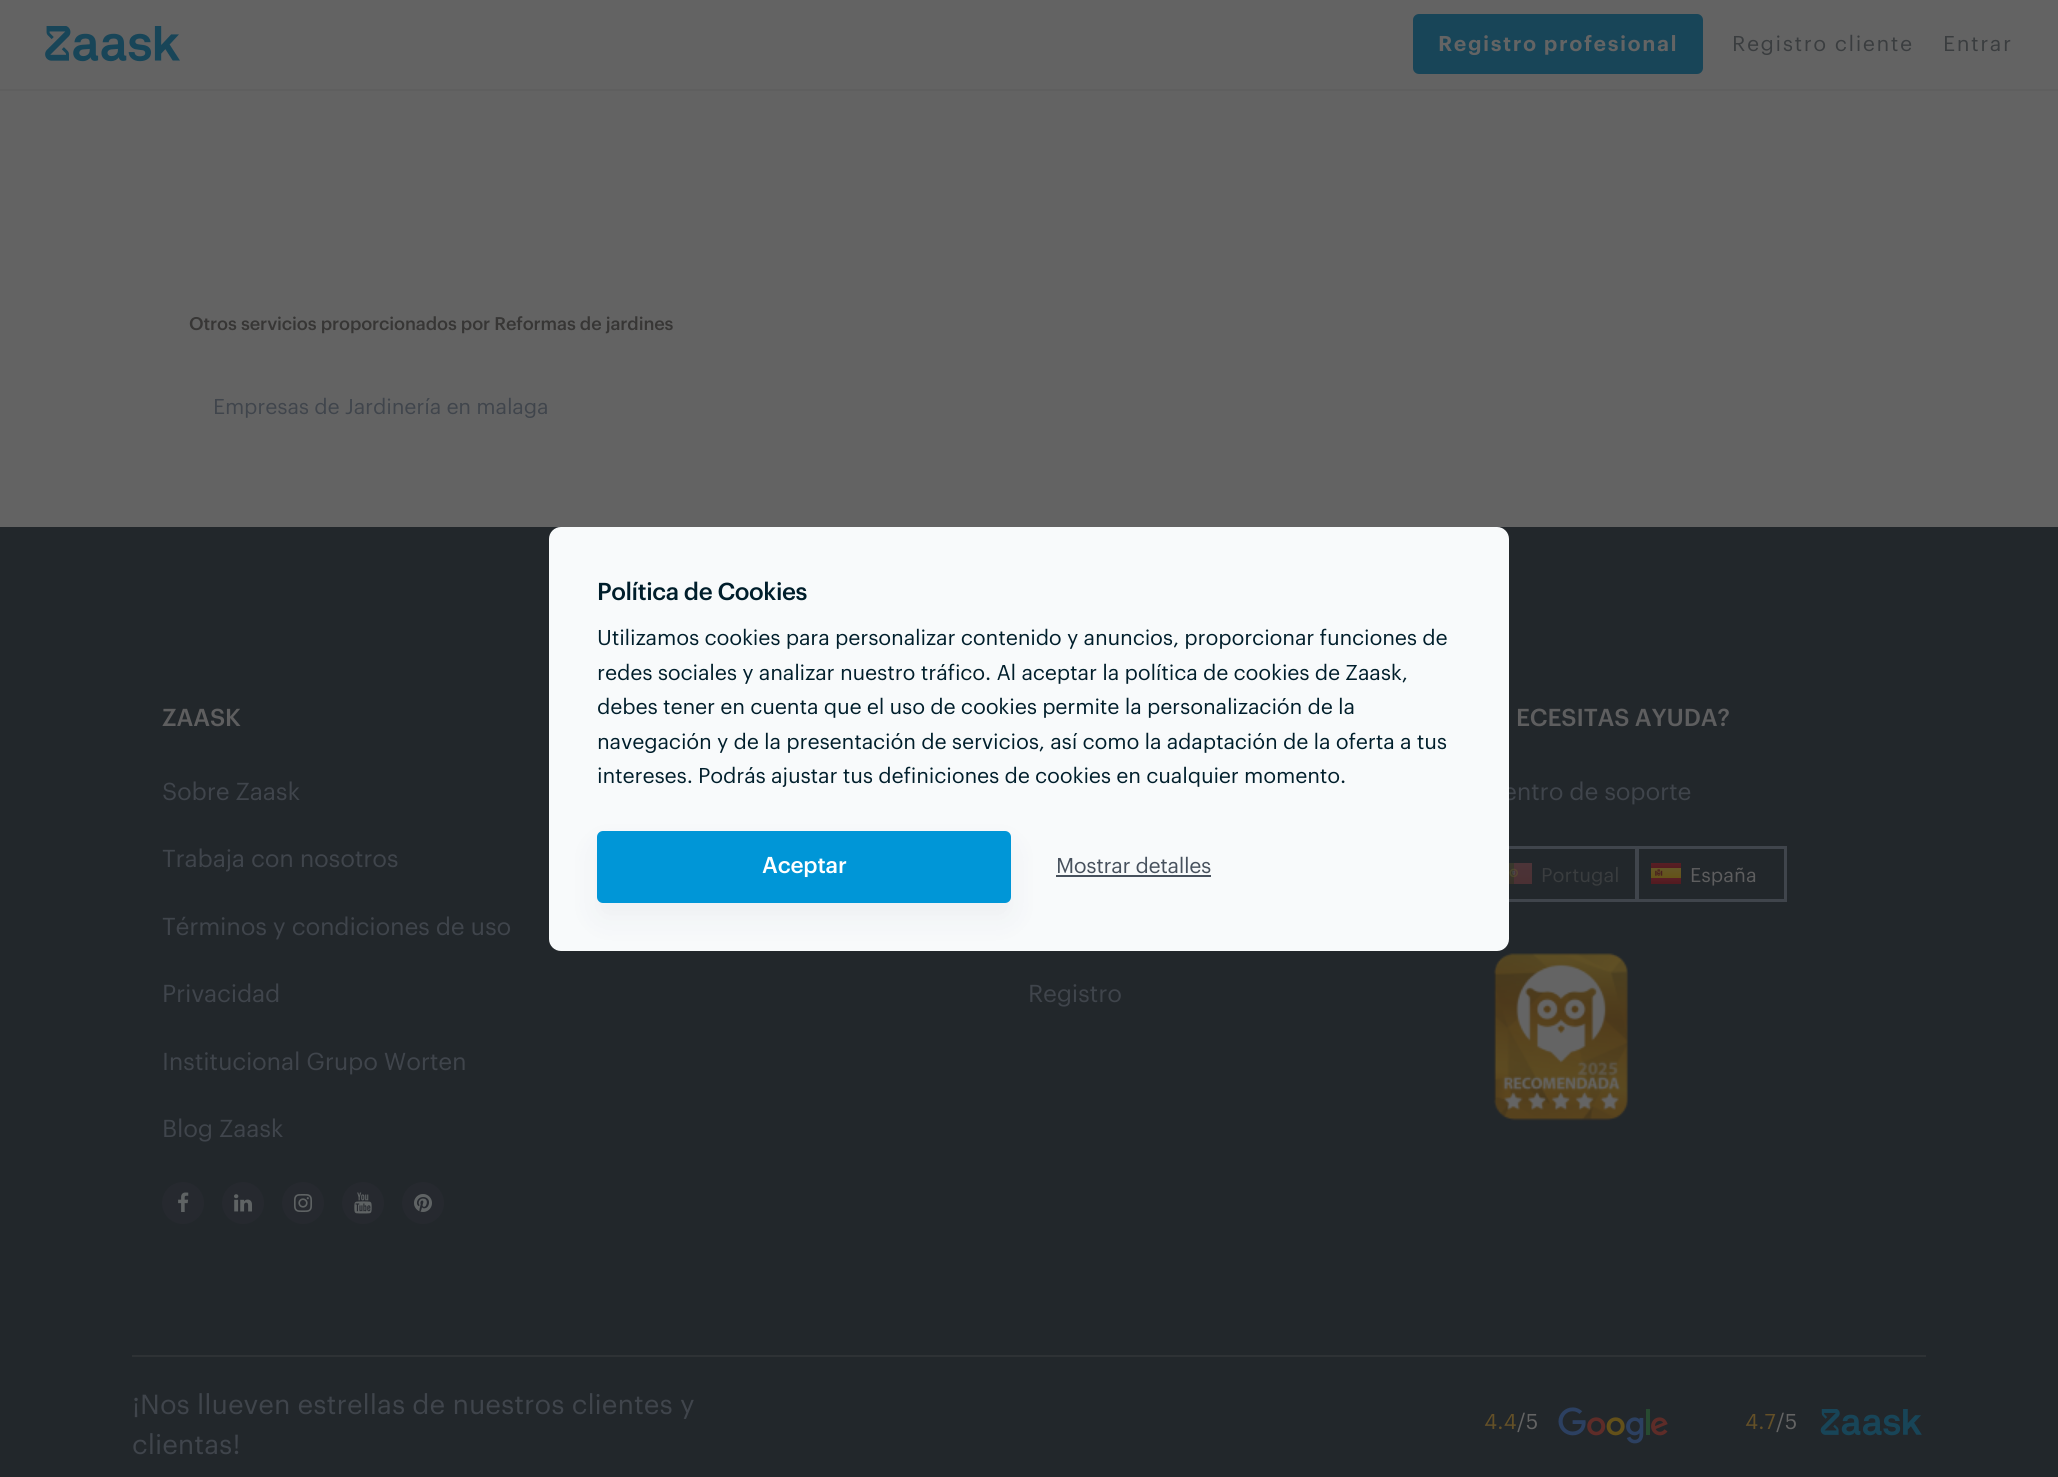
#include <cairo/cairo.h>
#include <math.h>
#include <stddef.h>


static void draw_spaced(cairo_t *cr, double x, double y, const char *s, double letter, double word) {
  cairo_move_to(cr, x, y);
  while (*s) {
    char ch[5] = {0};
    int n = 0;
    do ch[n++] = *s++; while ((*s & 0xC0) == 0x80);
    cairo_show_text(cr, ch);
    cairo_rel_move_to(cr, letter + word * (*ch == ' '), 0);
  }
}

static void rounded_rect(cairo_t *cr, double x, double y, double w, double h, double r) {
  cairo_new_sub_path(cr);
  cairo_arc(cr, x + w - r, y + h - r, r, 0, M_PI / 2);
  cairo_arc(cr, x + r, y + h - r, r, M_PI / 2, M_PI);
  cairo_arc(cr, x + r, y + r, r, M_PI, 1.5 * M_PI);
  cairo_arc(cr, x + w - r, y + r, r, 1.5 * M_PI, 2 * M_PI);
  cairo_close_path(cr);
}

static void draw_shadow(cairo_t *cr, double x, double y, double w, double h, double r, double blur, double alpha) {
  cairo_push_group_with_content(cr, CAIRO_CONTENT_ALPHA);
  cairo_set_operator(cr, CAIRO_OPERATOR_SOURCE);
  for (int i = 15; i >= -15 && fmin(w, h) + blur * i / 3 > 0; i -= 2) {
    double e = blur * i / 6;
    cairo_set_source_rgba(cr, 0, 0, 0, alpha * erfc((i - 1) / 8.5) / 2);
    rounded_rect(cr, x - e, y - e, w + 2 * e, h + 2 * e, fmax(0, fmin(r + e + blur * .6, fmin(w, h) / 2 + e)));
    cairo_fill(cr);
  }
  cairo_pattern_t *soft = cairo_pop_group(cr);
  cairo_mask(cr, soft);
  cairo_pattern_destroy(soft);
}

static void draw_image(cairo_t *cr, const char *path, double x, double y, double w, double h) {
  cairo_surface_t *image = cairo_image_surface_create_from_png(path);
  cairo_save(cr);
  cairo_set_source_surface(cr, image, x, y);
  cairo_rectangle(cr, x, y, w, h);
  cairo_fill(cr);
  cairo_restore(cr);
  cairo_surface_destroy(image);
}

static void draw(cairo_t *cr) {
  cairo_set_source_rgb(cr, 99 / 255.0, 99 / 255.0, 99 / 255.0);
  cairo_paint(cr);
  cairo_set_source_rgb(cr, 95 / 255.0, 95 / 255.0, 95 / 255.0);
  cairo_rectangle(cr, 0, 89, 2058, 2);
  cairo_fill(cr);
  draw_image(cr, "images/1.png", 45, 26, 135, 36);
  cairo_set_source_rgb(cr, 24 / 255.0, 69 / 255.0, 88 / 255.0);
  rounded_rect(cr, 1413, 14, 290, 60, 6);
  cairo_fill(cr);
  cairo_set_source_rgb(cr, 34 / 255.0, 39 / 255.0, 43 / 255.0);
  cairo_rectangle(cr, 0, 527, 2058, 950);
  cairo_fill(cr);
  cairo_set_source_rgb(cr, 38 / 255.0, 41 / 255.0, 47 / 255.0);
  cairo_arc(cr, 183, 1203, 21, 0, 2 * M_PI);
  cairo_fill(cr);
  draw_image(cr, "images/2.png", 178, 1192, 11, 20);
  cairo_arc(cr, 243, 1203, 21, 0, 2 * M_PI);
  cairo_fill(cr);
  draw_image(cr, "images/3.png", 234, 1194, 18, 18);
  cairo_arc(cr, 303, 1203, 21, 0, 2 * M_PI);
  cairo_fill(cr);
  draw_image(cr, "images/4.png", 294, 1194, 18, 18);
  cairo_arc(cr, 363, 1203, 21, 0, 2 * M_PI);
  cairo_fill(cr);
  draw_image(cr, "images/5.png", 354, 1192, 18, 22);
  cairo_arc(cr, 423, 1203, 21, 0, 2 * M_PI);
  cairo_fill(cr);
  draw_image(cr, "images/6.png", 414, 1194, 18, 18);
  cairo_set_source_rgb(cr, 64 / 255.0, 69 / 255.0, 76 / 255.0);
  cairo_rectangle(cr, 1509, 846, 278, 3);
  cairo_fill(cr);
  cairo_rectangle(cr, 1635, 846, 2, 56);
  cairo_fill(cr);
  cairo_rectangle(cr, 1509, 899, 128, 3);
  cairo_fill(cr);
  draw_image(cr, "images/7.png", 1509, 863, 23, 21);
  cairo_rectangle(cr, 1784, 846, 3, 56);
  cairo_fill(cr);
  cairo_rectangle(cr, 1637, 899, 150, 3);
  cairo_fill(cr);
  cairo_rectangle(cr, 1637, 846, 2, 56);
  cairo_fill(cr);
  draw_image(cr, "images/8.png", 1651, 863, 30, 21);
  draw_image(cr, "images/9.png", 1493, 953, 136, 168);
  cairo_set_source_rgb(cr, 46 / 255.0, 50 / 255.0, 53 / 255.0);
  cairo_rectangle(cr, 132, 1355, 1794, 2);
  cairo_fill(cr);
  draw_image(cr, "images/10.png", 1558, 1407, 110, 37);
  draw_image(cr, "images/11.png", 1820, 1409, 102, 27);
  cairo_select_font_face(cr, "Graphik SemiBold", CAIRO_FONT_SLANT_NORMAL, CAIRO_FONT_WEIGHT_NORMAL);
  cairo_set_font_size(cr, 21);
  cairo_set_source_rgb(cr, 100 / 255.0, 100 / 255.0, 100 / 255.0);
  draw_spaced(cr, 1438, 51, "Registro profesional", 1.5, 0);
  cairo_select_font_face(cr, "Graphik", CAIRO_FONT_SLANT_NORMAL, CAIRO_FONT_WEIGHT_NORMAL);
  cairo_set_source_rgb(cr, 58 / 255.0, 61 / 255.0, 63 / 255.0);
  draw_spaced(cr, 1732, 51, "Registro cliente", 1.5, 0);
  draw_spaced(cr, 1943, 51, "Entrar", 1.5, 0);
  cairo_select_font_face(cr, "Graphik Medium", CAIRO_FONT_SLANT_NORMAL, CAIRO_FONT_WEIGHT_NORMAL);
  cairo_set_font_size(cr, 18);
  cairo_set_source_rgb(cr, 55 / 255.0, 54 / 255.0, 53 / 255.0);
  draw_spaced(cr, 189, 330, "Otros servicios proporcionados por Reformas de jardines", -0.18, 0);
  cairo_select_font_face(cr, "Graphik", CAIRO_FONT_SLANT_NORMAL, CAIRO_FONT_WEIGHT_NORMAL);
  cairo_set_font_size(cr, 21);
  cairo_set_source_rgb(cr, 64 / 255.0, 69 / 255.0, 76 / 255.0);
  draw_spaced(cr, 213, 414, "Empresas de Jardinería en malaga", -0.2, 0);
  cairo_select_font_face(cr, "Graphik Medium", CAIRO_FONT_SLANT_NORMAL, CAIRO_FONT_WEIGHT_NORMAL);
  cairo_set_font_size(cr, 24);
  cairo_set_source_rgb(cr, 94 / 255.0, 94 / 255.0, 95 / 255.0);
  draw_spaced(cr, 162, 726, "ZAASK", -0.25, 0);
  cairo_select_font_face(cr, "Graphik", CAIRO_FONT_SLANT_NORMAL, CAIRO_FONT_WEIGHT_NORMAL);
  cairo_set_source_rgb(cr, 64 / 255.0, 69 / 255.0, 76 / 255.0);
  draw_spaced(cr, 162, 800, "Sobre Zaask", -0.25, 0);
  draw_spaced(cr, 162, 867, "Trabaja con nosotros", -0.25, 0);
  draw_spaced(cr, 162, 935, "Términos y condiciones de uso", -0.25, 0);
  draw_spaced(cr, 162, 1002, "Privacidad", -0.25, 0);
  draw_spaced(cr, 162, 1070, "Institucional Grupo Worten", -0.25, 0);
  draw_spaced(cr, 162, 1137, "Blog Zaask", -0.25, 0);
  cairo_select_font_face(cr, "Graphik Medium", CAIRO_FONT_SLANT_NORMAL, CAIRO_FONT_WEIGHT_NORMAL);
  cairo_set_source_rgb(cr, 94 / 255.0, 94 / 255.0, 95 / 255.0);
  draw_spaced(cr, 1516, 726, "ECESITAS AYUDA?", -0.25, 0);
  cairo_select_font_face(cr, "Graphik", CAIRO_FONT_SLANT_NORMAL, CAIRO_FONT_WEIGHT_NORMAL);
  cairo_set_source_rgb(cr, 64 / 255.0, 69 / 255.0, 76 / 255.0);
  draw_spaced(cr, 1503, 800, "entro de soporte", -0.25, 0);
  cairo_set_font_size(cr, 19.5);
  cairo_set_source_rgb(cr, 58 / 255.0, 61 / 255.0, 63 / 255.0);
  cairo_move_to(cr, 1541, 882);
  cairo_show_text(cr, "Portugal");
  cairo_set_source_rgb(cr, 94 / 255.0, 94 / 255.0, 95 / 255.0);
  cairo_move_to(cr, 1690, 882);
  cairo_show_text(cr, "España");
  cairo_set_font_size(cr, 24);
  cairo_set_source_rgb(cr, 64 / 255.0, 69 / 255.0, 76 / 255.0);
  draw_spaced(cr, 1028, 1002, "Registro", -0.25, 0);
  cairo_set_font_size(cr, 27);
  cairo_move_to(cr, 132, 1414);
  cairo_show_text(cr, "¡Nos llueven estrellas de nuestros clientes y");
  cairo_move_to(cr, 132, 1454);
  cairo_show_text(cr, "clientas!");
  cairo_set_font_size(cr, 21);
  cairo_set_source_rgb(cr, 100 / 255.0, 80 / 255.0, 39 / 255.0);
  cairo_move_to(cr, 1484, 1429);
  cairo_show_text(cr, "4.4");
  cairo_set_source_rgb(cr, 100 / 255.0, 100 / 255.0, 100 / 255.0);
  cairo_move_to(cr, 1517, 1429);
  cairo_show_text(cr, "/5");
  cairo_set_source_rgb(cr, 100 / 255.0, 80 / 255.0, 39 / 255.0);
  cairo_move_to(cr, 1745, 1429);
  cairo_show_text(cr, "4.7");
  cairo_set_source_rgb(cr, 100 / 255.0, 100 / 255.0, 100 / 255.0);
  cairo_move_to(cr, 1776, 1429);
  cairo_show_text(cr, "/5");
  cairo_set_source_rgb(cr, 248 / 255.0, 250 / 255.0, 251 / 255.0);
  rounded_rect(cr, 549, 527, 960, 424, 12);
  cairo_fill(cr);
  cairo_select_font_face(cr, "Graphik Medium", CAIRO_FONT_SLANT_NORMAL, CAIRO_FONT_WEIGHT_NORMAL);
  cairo_set_font_size(cr, 24);
  cairo_set_source_rgb(cr, 0, 30 / 255.0, 43 / 255.0);
  draw_spaced(cr, 597, 600, "Política de Cookies", -0.5, 0);
  cairo_select_font_face(cr, "Graphik", CAIRO_FONT_SLANT_NORMAL, CAIRO_FONT_WEIGHT_NORMAL);
  cairo_set_font_size(cr, 21);
  draw_spaced(cr, 597, 645, "Utilizamos cookies para personalizar contenido y anuncios, proporcionar funciones de", -0.2, 0);
  draw_spaced(cr, 597, 680, "redes sociales y analizar nuestro tráfico. Al aceptar la política de cookies de Zaask,", -0.2, 0);
  draw_spaced(cr, 597, 714, "debes tener en cuenta que el uso de cookies permite la personalización de la", -0.2, 0);
  draw_spaced(cr, 597, 749, "navegación y de la presentación de servicios, así como la adaptación de la oferta a tus", -0.2, 0);
  draw_spaced(cr, 597, 783, "intereses. Podrás ajustar tus definiciones de cookies en cualquier momento.", -0.2, 0);
  cairo_set_source_rgb(cr, 31 / 255.0, 32 / 255.0, 65 / 255.0);
  draw_shadow(cr, 597, 846, 414, 72, 6, 15, 0.05);
  cairo_set_source_rgb(cr, 0, 150 / 255.0, 215 / 255.0);
  rounded_rect(cr, 597, 831, 414, 72, 6);
  cairo_fill(cr);
  cairo_select_font_face(cr, "Graphik Medium", CAIRO_FONT_SLANT_NORMAL, CAIRO_FONT_WEIGHT_NORMAL);
  cairo_set_font_size(cr, 22.5);
  cairo_set_source_rgb(cr, 1, 1, 1);
  draw_spaced(cr, 762, 873, "Aceptar", -0.25, 0);
  cairo_select_font_face(cr, "Graphik", CAIRO_FONT_SLANT_NORMAL, CAIRO_FONT_WEIGHT_NORMAL);
  cairo_set_font_size(cr, 21);
  cairo_set_source_rgb(cr, 71 / 255.0, 81 / 255.0, 93 / 255.0);
  draw_spaced(cr, 1056, 873, "Mostrar detalles", -0.4, 0);
  cairo_rectangle(cr, 1056, 875, 155, 2);
  cairo_fill(cr);
}

int main(void) {
  cairo_surface_t *surface = cairo_image_surface_create(CAIRO_FORMAT_RGB24, 2058, 1477);
  cairo_t *cr = cairo_create(surface);
  cairo_font_options_t *options = cairo_font_options_create();
  cairo_font_options_set_hint_metrics(options, CAIRO_HINT_METRICS_OFF);
  cairo_font_options_set_hint_style(options, CAIRO_HINT_STYLE_NONE);
  cairo_set_font_options(cr, options);
  cairo_set_miter_limit(cr, 4);
  draw(cr);
  cairo_surface_write_to_png(surface, "out.png");
  cairo_font_options_destroy(options);
  cairo_destroy(cr);
  cairo_surface_destroy(surface);
  return 0;
}
